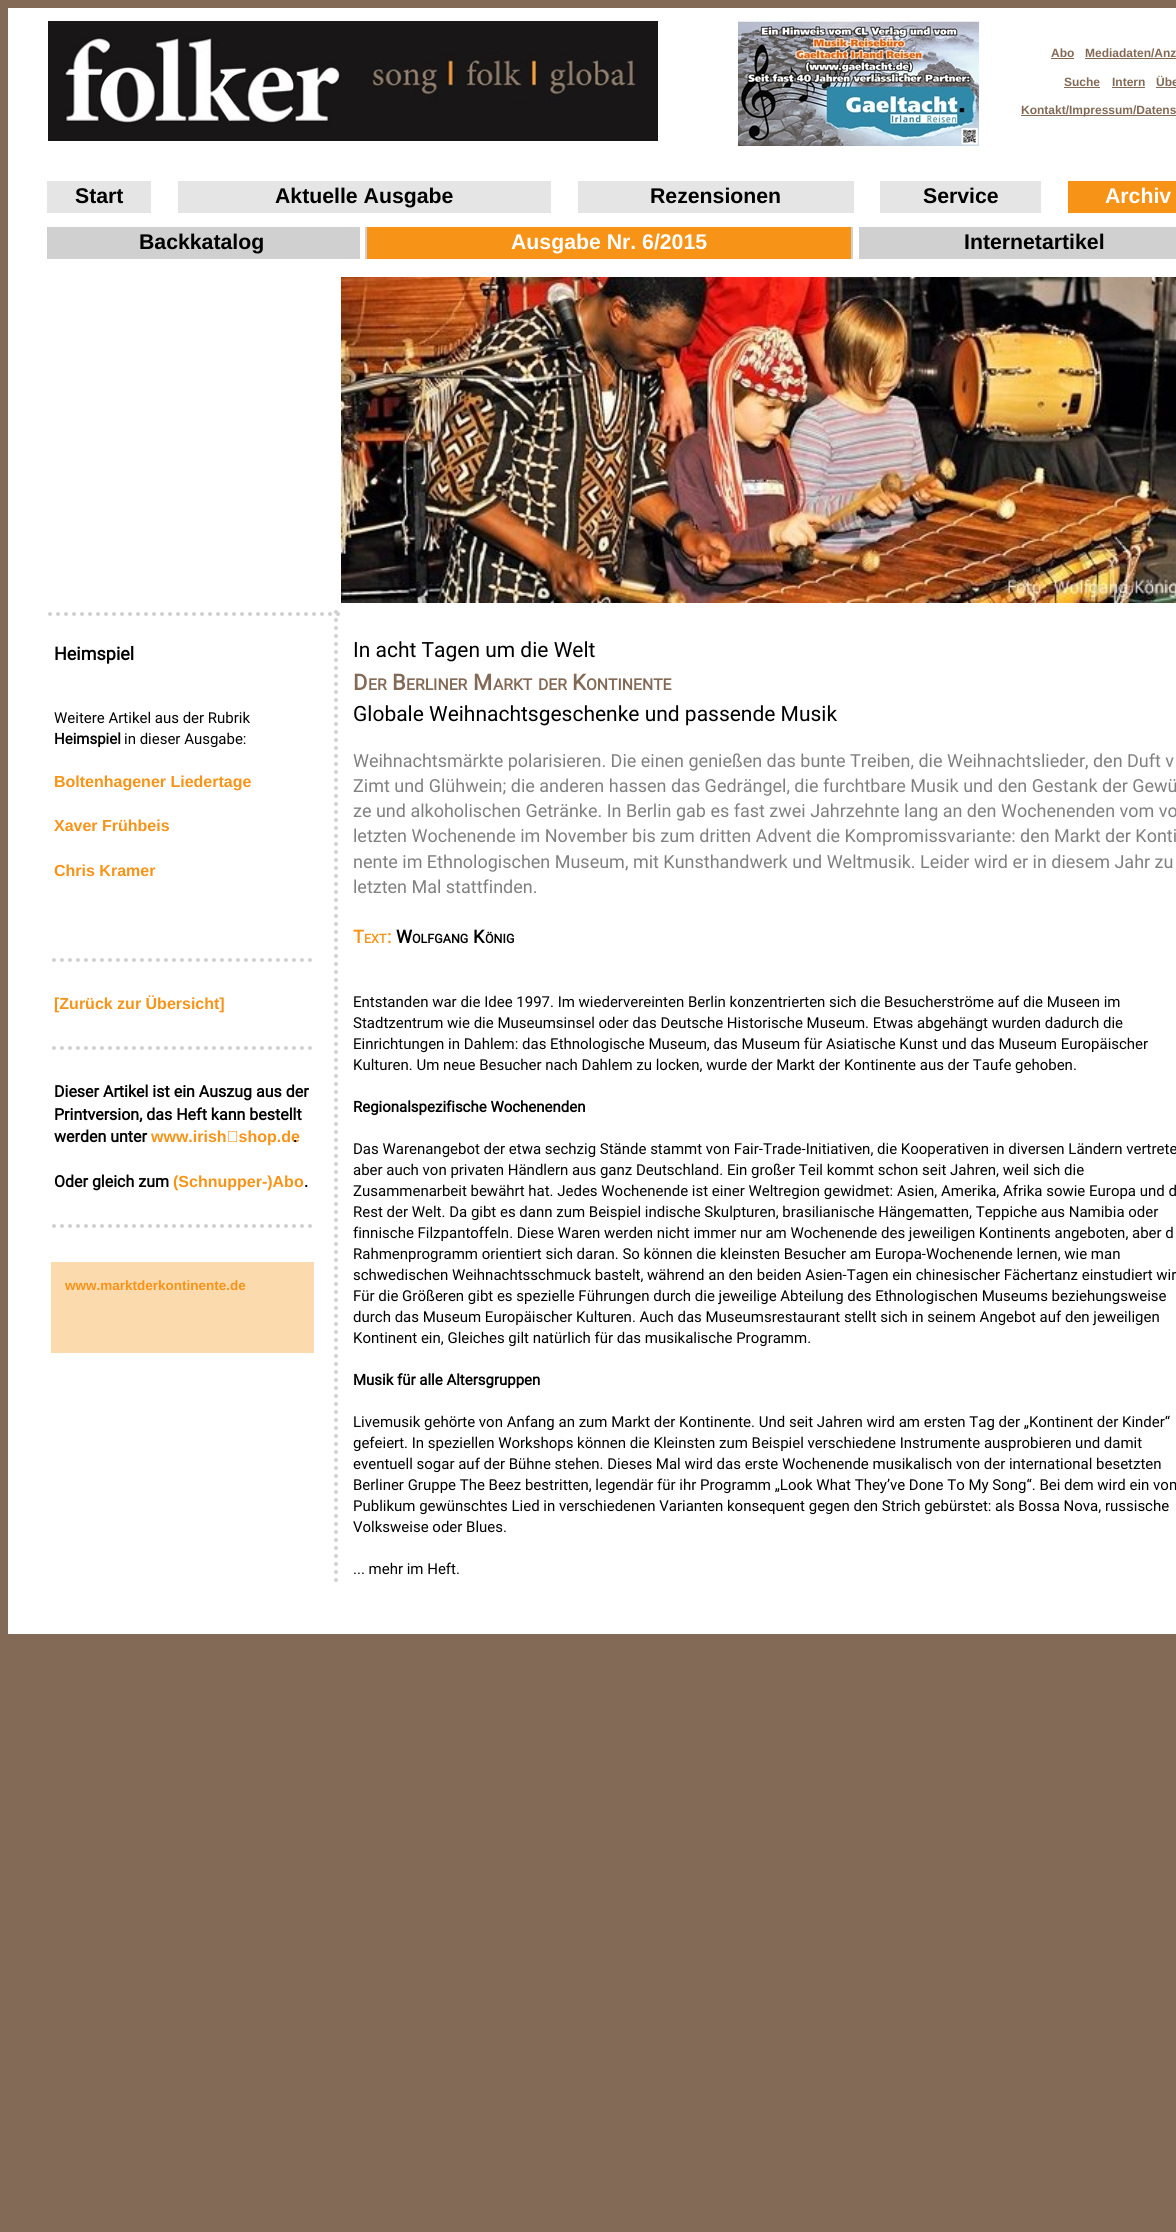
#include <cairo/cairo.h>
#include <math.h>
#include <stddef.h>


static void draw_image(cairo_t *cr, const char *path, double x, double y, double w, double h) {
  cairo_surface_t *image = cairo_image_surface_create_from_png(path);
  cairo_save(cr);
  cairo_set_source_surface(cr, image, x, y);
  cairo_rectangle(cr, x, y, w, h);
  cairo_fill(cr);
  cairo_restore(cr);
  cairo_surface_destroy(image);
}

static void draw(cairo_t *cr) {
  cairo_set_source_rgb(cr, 131 / 255.0, 106 / 255.0, 86 / 255.0);
  cairo_paint(cr);
  cairo_set_source_rgb(cr, 1, 1, 1);
  cairo_rectangle(cr, 8, 8, 1168, 1626);
  cairo_fill(cr);
  draw_image(cr, "images/1.png", 48, 21, 610, 120);
  draw_image(cr, "images/2.png", 738, 21, 241, 125);
  cairo_set_source_rgb(cr, 131 / 255.0, 106 / 255.0, 86 / 255.0);
  cairo_rectangle(cr, 1051, 58, 23, 1);
  cairo_fill(cr);
  cairo_rectangle(cr, 1085, 58, 91, 1);
  cairo_fill(cr);
  cairo_rectangle(cr, 1064, 87, 36, 1);
  cairo_fill(cr);
  cairo_rectangle(cr, 1112, 87, 33, 1);
  cairo_fill(cr);
  cairo_rectangle(cr, 1156, 87, 20, 1);
  cairo_fill(cr);
  cairo_rectangle(cr, 1021, 115, 155, 1);
  cairo_fill(cr);
  cairo_set_source_rgb(cr, 229 / 255.0, 229 / 255.0, 229 / 255.0);
  cairo_rectangle(cr, 47, 181, 104, 32);
  cairo_fill(cr);
  cairo_rectangle(cr, 178, 181, 373, 32);
  cairo_fill(cr);
  cairo_rectangle(cr, 578, 181, 276, 32);
  cairo_fill(cr);
  cairo_rectangle(cr, 880, 181, 161, 32);
  cairo_fill(cr);
  cairo_set_source_rgb(cr, 247 / 255.0, 147 / 255.0, 23 / 255.0);
  cairo_rectangle(cr, 1068, 181, 108, 32);
  cairo_fill(cr);
  cairo_set_source_rgb(cr, 208 / 255.0, 208 / 255.0, 208 / 255.0);
  cairo_rectangle(cr, 47, 227, 1129, 32);
  cairo_fill(cr);
  cairo_set_source_rgb(cr, 1, 1, 1);
  cairo_rectangle(cr, 360, 227, 5, 32);
  cairo_fill(cr);
  cairo_set_source_rgb(cr, 247 / 255.0, 147 / 255.0, 23 / 255.0);
  cairo_rectangle(cr, 367, 227, 484, 32);
  cairo_fill(cr);
  cairo_set_source_rgb(cr, 1, 1, 1);
  cairo_rectangle(cr, 853, 227, 6, 32);
  cairo_fill(cr);
  draw_image(cr, "images/3.png", 341, 277, 835, 326);
  cairo_new_path(cr);
  cairo_move_to(cr, 50, 614);
  cairo_line_to(cr, 338, 614);
  cairo_set_source_rgb(cr, 208 / 255.0, 208 / 255.0, 208 / 255.0);
  cairo_set_line_width(cr, 4);
  cairo_set_line_cap(cr, CAIRO_LINE_CAP_ROUND);
  cairo_set_dash(cr, (double[]){0, 8}, 2, 0);
  cairo_stroke(cr);
  cairo_new_path(cr);
  cairo_move_to(cr, 336, 612);
  cairo_line_to(cr, 336, 1581);
  cairo_stroke(cr);
  cairo_new_path(cr);
  cairo_move_to(cr, 54, 960);
  cairo_line_to(cr, 311, 960);
  cairo_stroke(cr);
  cairo_new_path(cr);
  cairo_move_to(cr, 54, 1048);
  cairo_line_to(cr, 311, 1048);
  cairo_stroke(cr);
  cairo_new_path(cr);
  cairo_move_to(cr, 54, 1226);
  cairo_line_to(cr, 311, 1226);
  cairo_stroke(cr);
  cairo_set_source_rgb(cr, 251 / 255.0, 218 / 255.0, 173 / 255.0);
  cairo_rectangle(cr, 51, 1262, 263, 91);
  cairo_fill(cr);
  cairo_select_font_face(cr, "Liberation Sans", CAIRO_FONT_SLANT_NORMAL, CAIRO_FONT_WEIGHT_BOLD);
  cairo_set_font_size(cr, 12);
  cairo_set_source_rgb(cr, 131 / 255.0, 106 / 255.0, 86 / 255.0);
  cairo_move_to(cr, 1051, 57);
  cairo_show_text(cr, "Abo");
  cairo_move_to(cr, 1085, 57);
  cairo_show_text(cr, "Mediadaten/Anz");
  cairo_move_to(cr, 1064, 86);
  cairo_show_text(cr, "Suche");
  cairo_move_to(cr, 1112, 86);
  cairo_show_text(cr, "Intern");
  cairo_move_to(cr, 1156, 86);
  cairo_show_text(cr, "Übe");
  cairo_move_to(cr, 1021, 114);
  cairo_show_text(cr, "Kontakt/Impressum/Datens");
  cairo_set_font_size(cr, 21.25);
  cairo_set_source_rgb(cr, 0, 0, 0);
  cairo_move_to(cr, 75, 203);
  cairo_show_text(cr, "Start");
  cairo_move_to(cr, 275, 203);
  cairo_show_text(cr, "Aktuelle Ausgabe");
  cairo_move_to(cr, 650, 203);
  cairo_show_text(cr, "Rezensionen");
  cairo_move_to(cr, 923, 203);
  cairo_show_text(cr, "Service");
  cairo_set_source_rgb(cr, 1, 1, 1);
  cairo_move_to(cr, 1105, 203);
  cairo_show_text(cr, "Archiv");
  cairo_set_source_rgb(cr, 0, 0, 0);
  cairo_move_to(cr, 139, 249);
  cairo_show_text(cr, "Backkatalog");
  cairo_set_source_rgb(cr, 1, 1, 1);
  cairo_move_to(cr, 511, 249);
  cairo_show_text(cr, "Ausgabe Nr. 6/2015");
  cairo_set_source_rgb(cr, 0, 0, 0);
  cairo_move_to(cr, 964, 249);
  cairo_show_text(cr, "Internetartikel");
  cairo_select_font_face(cr, "Roboto", CAIRO_FONT_SLANT_NORMAL, CAIRO_FONT_WEIGHT_BOLD);
  cairo_set_font_size(cr, 18);
  cairo_move_to(cr, 54, 660);
  cairo_show_text(cr, "Heimspiel");
  cairo_select_font_face(cr, "Roboto", CAIRO_FONT_SLANT_NORMAL, CAIRO_FONT_WEIGHT_NORMAL);
  cairo_set_font_size(cr, 15);
  cairo_move_to(cr, 54, 723);
  cairo_show_text(cr, "Weitere Artikel aus der Rubrik");
  cairo_select_font_face(cr, "Roboto", CAIRO_FONT_SLANT_NORMAL, CAIRO_FONT_WEIGHT_BOLD);
  cairo_move_to(cr, 54, 744);
  cairo_show_text(cr, "Heimspiel");
  cairo_select_font_face(cr, "Roboto", CAIRO_FONT_SLANT_NORMAL, CAIRO_FONT_WEIGHT_NORMAL);
  cairo_move_to(cr, 124, 744);
  cairo_show_text(cr, "in dieser Ausgabe:");
  cairo_select_font_face(cr, "Liberation Sans", CAIRO_FONT_SLANT_NORMAL, CAIRO_FONT_WEIGHT_BOLD);
  cairo_set_font_size(cr, 16);
  cairo_set_source_rgb(cr, 247 / 255.0, 147 / 255.0, 23 / 255.0);
  cairo_move_to(cr, 54, 787);
  cairo_show_text(cr, "Boltenhagener Liedertage");
  cairo_move_to(cr, 54, 831);
  cairo_show_text(cr, "Xaver Frühbeis");
  cairo_move_to(cr, 54, 876);
  cairo_show_text(cr, "Chris Kramer");
  cairo_move_to(cr, 54, 1009);
  cairo_show_text(cr, "[Zurück zur Übersicht]");
  cairo_select_font_face(cr, "Roboto", CAIRO_FONT_SLANT_NORMAL, CAIRO_FONT_WEIGHT_BOLD);
  cairo_set_source_rgb(cr, 0, 0, 0);
  cairo_move_to(cr, 54, 1097);
  cairo_show_text(cr, "Dieser Artikel ist ein Auszug aus der");
  cairo_move_to(cr, 54, 1120);
  cairo_show_text(cr, "Printversion, das Heft kann bestellt");
  cairo_move_to(cr, 54, 1142);
  cairo_show_text(cr, "werden unter");
  cairo_select_font_face(cr, "Liberation Sans", CAIRO_FONT_SLANT_NORMAL, CAIRO_FONT_WEIGHT_BOLD);
  cairo_set_source_rgb(cr, 247 / 255.0, 147 / 255.0, 23 / 255.0);
  cairo_move_to(cr, 151, 1142);
  cairo_show_text(cr, "www.irish‑shop.de");
  cairo_select_font_face(cr, "Roboto", CAIRO_FONT_SLANT_NORMAL, CAIRO_FONT_WEIGHT_BOLD);
  cairo_set_source_rgb(cr, 0, 0, 0);
  cairo_move_to(cr, 293, 1142);
  cairo_show_text(cr, ".");
  cairo_move_to(cr, 54, 1187);
  cairo_show_text(cr, "Oder gleich zum");
  cairo_select_font_face(cr, "Liberation Sans", CAIRO_FONT_SLANT_NORMAL, CAIRO_FONT_WEIGHT_BOLD);
  cairo_set_source_rgb(cr, 247 / 255.0, 147 / 255.0, 23 / 255.0);
  cairo_move_to(cr, 173, 1187);
  cairo_show_text(cr, "(Schnupper-)Abo");
  cairo_select_font_face(cr, "Roboto", CAIRO_FONT_SLANT_NORMAL, CAIRO_FONT_WEIGHT_BOLD);
  cairo_set_source_rgb(cr, 0, 0, 0);
  cairo_move_to(cr, 304, 1187);
  cairo_show_text(cr, ".");
  cairo_select_font_face(cr, "Liberation Sans", CAIRO_FONT_SLANT_NORMAL, CAIRO_FONT_WEIGHT_BOLD);
  cairo_set_font_size(cr, 13.5);
  cairo_set_source_rgb(cr, 247 / 255.0, 147 / 255.0, 23 / 255.0);
  cairo_move_to(cr, 65, 1290);
  cairo_show_text(cr, "www.marktderkontinente.de");
  cairo_select_font_face(cr, "Roboto", CAIRO_FONT_SLANT_NORMAL, CAIRO_FONT_WEIGHT_NORMAL);
  cairo_set_font_size(cr, 21);
  cairo_set_source_rgb(cr, 0, 0, 0);
  cairo_move_to(cr, 353, 657);
  cairo_show_text(cr, "In acht Tagen um die Welt");
  cairo_select_font_face(cr, "Roboto", CAIRO_FONT_SLANT_NORMAL, CAIRO_FONT_WEIGHT_BOLD);
  cairo_set_font_size(cr, 22);
  cairo_set_source_rgb(cr, 131 / 255.0, 106 / 255.0, 86 / 255.0);
  cairo_move_to(cr, 353, 690);
  cairo_show_text(cr, "D");
  cairo_set_font_size(cr, 15.75);
  cairo_move_to(cr, 368, 690);
  cairo_show_text(cr, "ER");
  cairo_set_font_size(cr, 22);
  cairo_move_to(cr, 392, 690);
  cairo_show_text(cr, "B");
  cairo_set_font_size(cr, 15.75);
  cairo_move_to(cr, 406, 690);
  cairo_show_text(cr, "ERLINER");
  cairo_set_font_size(cr, 22);
  cairo_move_to(cr, 473, 690);
  cairo_show_text(cr, "M");
  cairo_set_font_size(cr, 15.75);
  cairo_move_to(cr, 493, 690);
  cairo_show_text(cr, "ARKT");
  cairo_move_to(cr, 538, 690);
  cairo_show_text(cr, "DER");
  cairo_set_font_size(cr, 22);
  cairo_move_to(cr, 572, 690);
  cairo_show_text(cr, "K");
  cairo_set_font_size(cr, 15.75);
  cairo_move_to(cr, 586, 690);
  cairo_show_text(cr, "ONTINENTE");
  cairo_select_font_face(cr, "Roboto", CAIRO_FONT_SLANT_NORMAL, CAIRO_FONT_WEIGHT_NORMAL);
  cairo_set_font_size(cr, 21);
  cairo_set_source_rgb(cr, 0, 0, 0);
  cairo_move_to(cr, 353, 721);
  cairo_show_text(cr, "Globale Weihnachtsgeschenke und passende Musik");
  cairo_set_font_size(cr, 18);
  cairo_set_source_rgb(cr, 128 / 255.0, 128 / 255.0, 128 / 255.0);
  cairo_move_to(cr, 353, 767);
  cairo_show_text(cr, "Weihnachtsmärkte polarisieren. Die einen genießen das bunte Treiben, die Weihnachtslieder, den Duft v");
  cairo_move_to(cr, 353, 792);
  cairo_show_text(cr, "Zimt und Glühwein; die anderen hassen das Gedrängel, die furchtbare Musik und den Gestank der Gewü");
  cairo_move_to(cr, 353, 817);
  cairo_show_text(cr, "ze und alkoholischen Getränke. In Berlin gab es fast zwei Jahrzehnte lang an den Wochenenden vom vo");
  cairo_move_to(cr, 353, 842);
  cairo_show_text(cr, "letzten Wochenende im November bis zum dritten Advent die Kompromissvariante: den Markt der Konti");
  cairo_move_to(cr, 353, 868);
  cairo_show_text(cr, "nente im Ethnologischen Museum, mit Kunsthandwerk und Weltmusik. Leider wird er in diesem Jahr zu");
  cairo_move_to(cr, 353, 893);
  cairo_show_text(cr, "letzten Mal stattfinden.");
  cairo_select_font_face(cr, "Roboto", CAIRO_FONT_SLANT_NORMAL, CAIRO_FONT_WEIGHT_BOLD);
  cairo_set_source_rgb(cr, 247 / 255.0, 147 / 255.0, 23 / 255.0);
  cairo_move_to(cr, 353, 943);
  cairo_show_text(cr, "T");
  cairo_set_font_size(cr, 12.5);
  cairo_move_to(cr, 364, 943);
  cairo_show_text(cr, "EXT");
  cairo_set_font_size(cr, 18);
  cairo_move_to(cr, 387, 943);
  cairo_show_text(cr, ":");
  cairo_set_source_rgb(cr, 0, 0, 0);
  cairo_move_to(cr, 396, 943);
  cairo_show_text(cr, "W");
  cairo_set_font_size(cr, 12.5);
  cairo_move_to(cr, 412, 943);
  cairo_show_text(cr, "OLFGANG");
  cairo_set_font_size(cr, 18);
  cairo_move_to(cr, 473, 943);
  cairo_show_text(cr, "K");
  cairo_set_font_size(cr, 12.5);
  cairo_move_to(cr, 485, 943);
  cairo_show_text(cr, "ÖNIG");
  cairo_select_font_face(cr, "Roboto", CAIRO_FONT_SLANT_NORMAL, CAIRO_FONT_WEIGHT_NORMAL);
  cairo_set_font_size(cr, 15);
  cairo_move_to(cr, 353, 1007);
  cairo_show_text(cr, "Entstanden war die Idee 1997. Im wiedervereinten Berlin konzentrierten sich die Besucherströme auf die Museen im");
  cairo_move_to(cr, 353, 1028);
  cairo_show_text(cr, "Stadtzentrum wie die Museumsinsel oder das Deutsche Historische Museum. Etwas abgehängt wurden dadurch die");
  cairo_move_to(cr, 353, 1049);
  cairo_show_text(cr, "Einrichtungen in Dahlem: das Ethnologische Museum, das Museum für Asiatische Kunst und das Museum Europäischer");
  cairo_move_to(cr, 353, 1070);
  cairo_show_text(cr, "Kulturen. Um neue Besucher nach Dahlem zu locken, wurde der Markt der Kontinente aus der Taufe gehoben.");
  cairo_select_font_face(cr, "Roboto", CAIRO_FONT_SLANT_NORMAL, CAIRO_FONT_WEIGHT_BOLD);
  cairo_move_to(cr, 353, 1112);
  cairo_show_text(cr, "Regionalspezifische Wochenenden");
  cairo_select_font_face(cr, "Roboto", CAIRO_FONT_SLANT_NORMAL, CAIRO_FONT_WEIGHT_NORMAL);
  cairo_move_to(cr, 353, 1154);
  cairo_show_text(cr, "Das Warenangebot der etwa sechzig Stände stammt von Fair-Trade-Initiativen, die Kooperativen in diversen Ländern vertrete");
  cairo_move_to(cr, 353, 1175);
  cairo_show_text(cr, "aber auch von privaten Händlern aus ganz Deutschland. Ein großer Teil kommt schon seit Jahren, weil sich die");
  cairo_move_to(cr, 353, 1196);
  cairo_show_text(cr, "Zusammenarbeit bewährt hat. Jedes Wochenende ist einer Weltregion gewidmet: Asien, Amerika, Afrika sowie Europa und d");
  cairo_move_to(cr, 353, 1217);
  cairo_show_text(cr, "Rest der Welt. Da gibt es dann zum Beispiel indische Skulpturen, brasilianische Hängematten, Teppiche aus Namibia oder");
  cairo_move_to(cr, 353, 1238);
  cairo_show_text(cr, "finnische Filzpantoffeln. Diese Waren werden nicht immer nur am Wochenende des jeweiligen Kontinents angeboten, aber d");
  cairo_move_to(cr, 353, 1259);
  cairo_show_text(cr, "Rahmenprogramm orientiert sich daran. So können die kleinsten Besucher am Europa-Wochenende lernen, wie man");
  cairo_move_to(cr, 353, 1280);
  cairo_show_text(cr, "schwedischen Weihnachtsschmuck bastelt, während an den beiden Asien-Tagen ein chinesischer Fächertanz einstudiert wir");
  cairo_move_to(cr, 353, 1301);
  cairo_show_text(cr, "Für die Größeren gibt es spezielle Führungen durch die jeweilige Abteilung des Ethnologischen Museums beziehungsweise");
  cairo_move_to(cr, 353, 1322);
  cairo_show_text(cr, "durch das Museum Europäischer Kulturen. Auch das Museumsrestaurant stellt sich in seinem Angebot auf den jeweiligen");
  cairo_move_to(cr, 353, 1343);
  cairo_show_text(cr, "Kontinent ein, Gleiches gilt natürlich für das musikalische Programm.");
  cairo_select_font_face(cr, "Roboto", CAIRO_FONT_SLANT_NORMAL, CAIRO_FONT_WEIGHT_BOLD);
  cairo_move_to(cr, 353, 1385);
  cairo_show_text(cr, "Musik für alle Altersgruppen");
  cairo_select_font_face(cr, "Roboto", CAIRO_FONT_SLANT_NORMAL, CAIRO_FONT_WEIGHT_NORMAL);
  cairo_move_to(cr, 353, 1427);
  cairo_show_text(cr, "Livemusik gehörte von Anfang an zum Markt der Kontinente. Und seit Jahren wird am ersten Tag der „Kontinent der Kinder“");
  cairo_move_to(cr, 353, 1448);
  cairo_show_text(cr, "gefeiert. In speziellen Workshops können die Kleinsten zum Beispiel verschiedene Instrumente ausprobieren und damit");
  cairo_move_to(cr, 353, 1469);
  cairo_show_text(cr, "eventuell sogar auf der Bühne stehen. Dieses Mal wird das erste Wochenende musikalisch von der international besetzten");
  cairo_move_to(cr, 353, 1490);
  cairo_show_text(cr, "Berliner Gruppe The Beez bestritten, legendär für ihr Programm „Look What They’ve Done To My Song“. Bei dem wird ein vom");
  cairo_move_to(cr, 353, 1511);
  cairo_show_text(cr, "Publikum gewünschtes Lied in verschiedenen Varianten konsequent gegen den Strich gebürstet: als Bossa Nova, russische");
  cairo_move_to(cr, 353, 1532);
  cairo_show_text(cr, "Volksweise oder Blues.");
  cairo_move_to(cr, 353, 1574);
  cairo_show_text(cr, "... mehr im Heft.");
}

int main(void) {
  cairo_surface_t *surface = cairo_image_surface_create(CAIRO_FORMAT_RGB24, 1176, 2232);
  cairo_t *cr = cairo_create(surface);
  cairo_font_options_t *options = cairo_font_options_create();
  cairo_font_options_set_hint_metrics(options, CAIRO_HINT_METRICS_OFF);
  cairo_font_options_set_hint_style(options, CAIRO_HINT_STYLE_NONE);
  cairo_set_font_options(cr, options);
  cairo_set_miter_limit(cr, 4);
  draw(cr);
  cairo_surface_write_to_png(surface, "out.png");
  cairo_font_options_destroy(options);
  cairo_destroy(cr);
  cairo_surface_destroy(surface);
  return 0;
}
